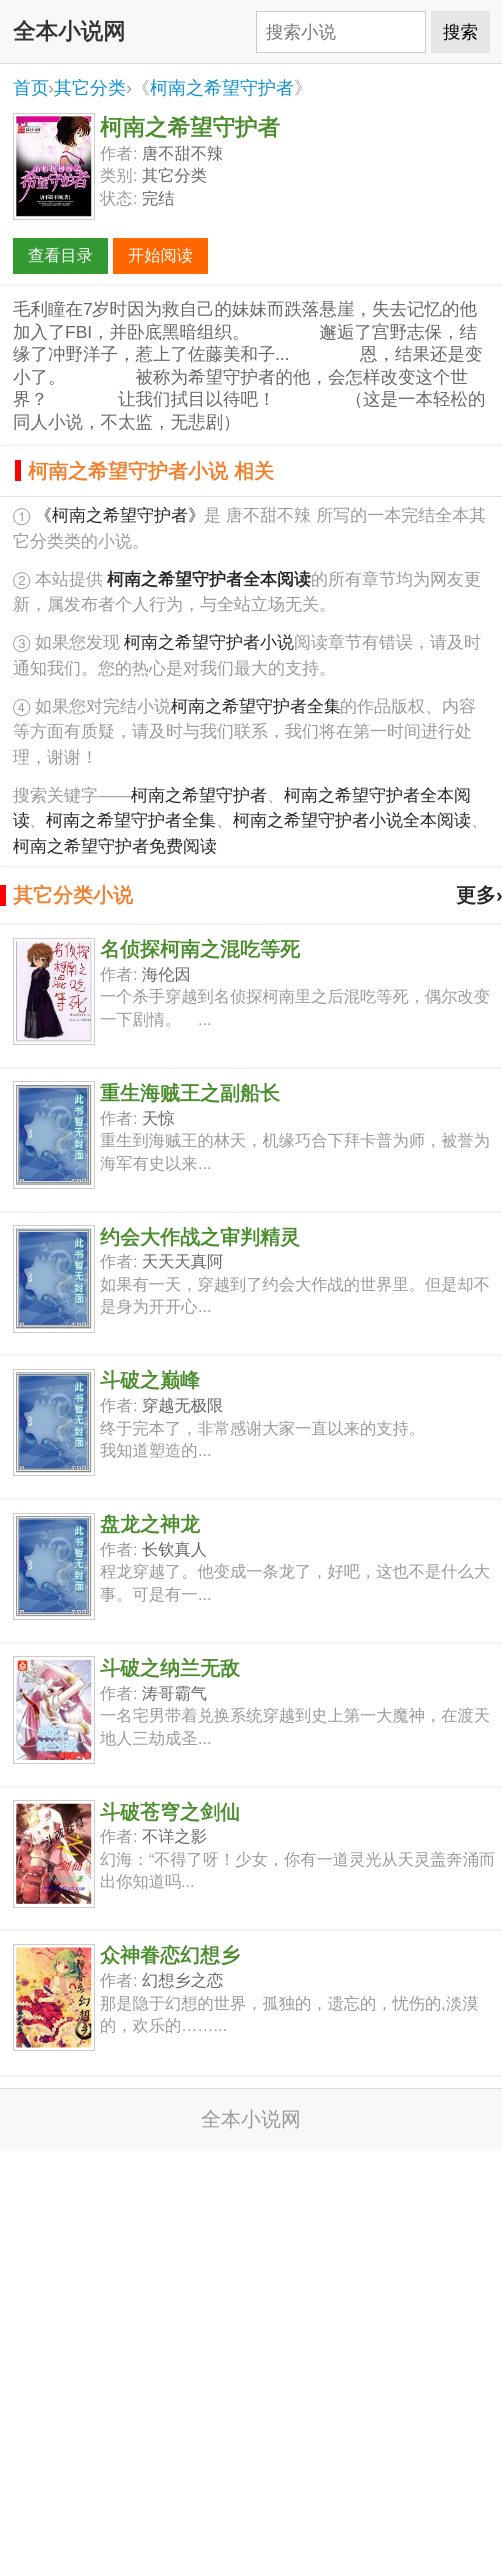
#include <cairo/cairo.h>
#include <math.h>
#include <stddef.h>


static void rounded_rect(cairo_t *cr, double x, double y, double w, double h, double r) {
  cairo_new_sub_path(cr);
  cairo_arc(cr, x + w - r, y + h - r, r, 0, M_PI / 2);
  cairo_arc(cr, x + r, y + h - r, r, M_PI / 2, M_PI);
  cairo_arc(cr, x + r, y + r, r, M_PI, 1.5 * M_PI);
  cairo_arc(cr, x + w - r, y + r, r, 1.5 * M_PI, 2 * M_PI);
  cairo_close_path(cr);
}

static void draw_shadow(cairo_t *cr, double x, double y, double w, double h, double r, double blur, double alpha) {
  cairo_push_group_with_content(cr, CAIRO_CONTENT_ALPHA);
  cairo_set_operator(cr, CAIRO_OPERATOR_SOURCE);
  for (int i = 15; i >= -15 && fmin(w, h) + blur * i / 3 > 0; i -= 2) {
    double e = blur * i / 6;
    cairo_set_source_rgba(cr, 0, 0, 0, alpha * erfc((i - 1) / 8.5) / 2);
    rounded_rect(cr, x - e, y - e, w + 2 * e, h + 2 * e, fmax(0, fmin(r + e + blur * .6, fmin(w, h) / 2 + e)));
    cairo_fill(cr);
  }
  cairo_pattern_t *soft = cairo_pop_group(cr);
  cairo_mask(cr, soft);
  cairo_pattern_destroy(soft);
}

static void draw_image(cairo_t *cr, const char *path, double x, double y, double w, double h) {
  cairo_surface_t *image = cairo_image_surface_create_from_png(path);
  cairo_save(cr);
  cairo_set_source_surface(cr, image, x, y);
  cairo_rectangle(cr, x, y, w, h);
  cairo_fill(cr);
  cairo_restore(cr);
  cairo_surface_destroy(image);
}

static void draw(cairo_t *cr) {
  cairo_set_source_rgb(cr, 1, 1, 1);
  cairo_paint(cr);
  cairo_set_source_rgb(cr, 248 / 255.0, 248 / 255.0, 248 / 255.0);
  cairo_rectangle(cr, 0, 0, 502, 63);
  cairo_fill(cr);
  cairo_set_source_rgb(cr, 221 / 255.0, 221 / 255.0, 221 / 255.0);
  cairo_rectangle(cr, 0, 63, 502, 1);
  cairo_fill(cr);
  cairo_set_source_rgb(cr, 1, 1, 1);
  cairo_rectangle(cr, 256.5, 11.5, 169, 41);
  cairo_fill_preserve(cr);
  cairo_set_source_rgb(cr, 204 / 255.0, 204 / 255.0, 204 / 255.0);
  cairo_set_line_width(cr, 1);
  cairo_stroke(cr);
  cairo_set_source_rgb(cr, 230 / 255.0, 230 / 255.0, 230 / 255.0);
  cairo_rectangle(cr, 431, 11, 59, 42);
  cairo_fill(cr);
  cairo_rectangle(cr, 13.5, 113.5, 81, 106);
  cairo_set_source_rgb(cr, 204 / 255.0, 204 / 255.0, 204 / 255.0);
  cairo_stroke(cr);
  draw_image(cr, "images/1.png", 16, 116, 76, 101);
  cairo_set_source_rgb(cr, 51 / 255.0, 153 / 255.0, 51 / 255.0);
  cairo_rectangle(cr, 13, 238, 95, 36);
  cairo_fill(cr);
  cairo_set_source_rgb(cr, 1, 102 / 255.0, 0);
  cairo_rectangle(cr, 113, 238, 95, 36);
  cairo_fill(cr);
  cairo_set_source_rgb(cr, 221 / 255.0, 221 / 255.0, 221 / 255.0);
  draw_shadow(cr, 0, 286, 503, 160, 0, 2, 1);
  cairo_set_source_rgb(cr, 1, 1, 1);
  cairo_rectangle(cr, 0, 286, 502, 160);
  cairo_fill(cr);
  cairo_set_source_rgb(cr, 221 / 255.0, 221 / 255.0, 221 / 255.0);
  draw_shadow(cr, 0, 446, 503, 420, 0, 2, 1);
  cairo_set_source_rgb(cr, 1, 1, 1);
  cairo_rectangle(cr, 0, 446, 502, 420);
  cairo_fill(cr);
  cairo_set_source_rgb(cr, 227 / 255.0, 221 / 255.0, 220 / 255.0);
  cairo_rectangle(cr, 0, 496, 502, 1);
  cairo_fill(cr);
  cairo_set_source_rgb(cr, 1, 0, 0);
  cairo_rectangle(cr, 15, 460, 6, 21);
  cairo_fill(cr);
  cairo_rectangle(cr, 0, 885, 6, 21);
  cairo_fill(cr);
  cairo_set_source_rgb(cr, 221 / 255.0, 221 / 255.0, 221 / 255.0);
  draw_shadow(cr, 0, 925, 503, 144, 0, 2, 1);
  cairo_set_source_rgb(cr, 1, 1, 1);
  cairo_rectangle(cr, 0, 925, 502, 144);
  cairo_fill(cr);
  cairo_rectangle(cr, 13.5, 938.5, 81, 106);
  cairo_set_source_rgb(cr, 204 / 255.0, 204 / 255.0, 204 / 255.0);
  cairo_stroke(cr);
  draw_image(cr, "images/2.png", 16, 941, 76, 101);
  cairo_set_source_rgb(cr, 221 / 255.0, 221 / 255.0, 221 / 255.0);
  draw_shadow(cr, 0, 1069, 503, 144, 0, 2, 1);
  cairo_set_source_rgb(cr, 1, 1, 1);
  cairo_rectangle(cr, 0, 1069, 502, 144);
  cairo_fill(cr);
  cairo_rectangle(cr, 13.5, 1081.5, 81, 107);
  cairo_set_source_rgb(cr, 204 / 255.0, 204 / 255.0, 204 / 255.0);
  cairo_stroke(cr);
  draw_image(cr, "images/3.png", 16, 1085, 76, 100);
  cairo_set_source_rgb(cr, 221 / 255.0, 221 / 255.0, 221 / 255.0);
  draw_shadow(cr, 0, 1213, 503, 143, 0, 2, 1);
  cairo_set_source_rgb(cr, 1, 1, 1);
  cairo_rectangle(cr, 0, 1213, 502, 143);
  cairo_fill(cr);
  cairo_rectangle(cr, 13.5, 1225.5, 81, 107);
  cairo_set_source_rgb(cr, 204 / 255.0, 204 / 255.0, 204 / 255.0);
  cairo_stroke(cr);
  draw_image(cr, "images/4.png", 16, 1228, 76, 101);
  cairo_set_source_rgb(cr, 221 / 255.0, 221 / 255.0, 221 / 255.0);
  draw_shadow(cr, 0, 1356, 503, 144, 0, 2, 1);
  cairo_set_source_rgb(cr, 1, 1, 1);
  cairo_rectangle(cr, 0, 1356, 502, 144);
  cairo_fill(cr);
  cairo_rectangle(cr, 13.5, 1369.5, 81, 106);
  cairo_set_source_rgb(cr, 204 / 255.0, 204 / 255.0, 204 / 255.0);
  cairo_stroke(cr);
  draw_image(cr, "images/5.png", 16, 1372, 76, 101);
  cairo_set_source_rgb(cr, 221 / 255.0, 221 / 255.0, 221 / 255.0);
  draw_shadow(cr, 0, 1500, 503, 144, 0, 2, 1);
  cairo_set_source_rgb(cr, 1, 1, 1);
  cairo_rectangle(cr, 0, 1500, 502, 144);
  cairo_fill(cr);
  cairo_rectangle(cr, 13.5, 1513.5, 81, 106);
  cairo_set_source_rgb(cr, 204 / 255.0, 204 / 255.0, 204 / 255.0);
  cairo_stroke(cr);
  draw_image(cr, "images/6.png", 16, 1516, 76, 101);
  cairo_set_source_rgb(cr, 221 / 255.0, 221 / 255.0, 221 / 255.0);
  draw_shadow(cr, 0, 1644, 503, 144, 0, 2, 1);
  cairo_set_source_rgb(cr, 1, 1, 1);
  cairo_rectangle(cr, 0, 1644, 502, 144);
  cairo_fill(cr);
  cairo_rectangle(cr, 13.5, 1656.5, 81, 107);
  cairo_set_source_rgb(cr, 204 / 255.0, 204 / 255.0, 204 / 255.0);
  cairo_stroke(cr);
  draw_image(cr, "images/7.png", 16, 1660, 76, 100);
  cairo_set_source_rgb(cr, 221 / 255.0, 221 / 255.0, 221 / 255.0);
  draw_shadow(cr, 0, 1788, 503, 143, 0, 2, 1);
  cairo_set_source_rgb(cr, 1, 1, 1);
  cairo_rectangle(cr, 0, 1788, 502, 143);
  cairo_fill(cr);
  cairo_rectangle(cr, 13.5, 1800.5, 81, 107);
  cairo_set_source_rgb(cr, 204 / 255.0, 204 / 255.0, 204 / 255.0);
  cairo_stroke(cr);
  draw_image(cr, "images/8.png", 16, 1803, 76, 101);
  cairo_set_source_rgb(cr, 221 / 255.0, 221 / 255.0, 221 / 255.0);
  draw_shadow(cr, 0, 1931, 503, 144, 0, 2, 1);
  cairo_set_source_rgb(cr, 1, 1, 1);
  cairo_rectangle(cr, 0, 1931, 502, 144);
  cairo_fill(cr);
  cairo_rectangle(cr, 13.5, 1944.5, 81, 106);
  cairo_set_source_rgb(cr, 204 / 255.0, 204 / 255.0, 204 / 255.0);
  cairo_stroke(cr);
  draw_image(cr, "images/9.png", 16, 1947, 76, 101);
  cairo_set_source_rgb(cr, 248 / 255.0, 248 / 255.0, 248 / 255.0);
  cairo_rectangle(cr, 0, 2089, 502, 62);
  cairo_fill(cr);
  cairo_set_source_rgb(cr, 221 / 255.0, 221 / 255.0, 221 / 255.0);
  cairo_rectangle(cr, 0, 2088, 502, 1);
  cairo_fill(cr);
  cairo_select_font_face(cr, "WenQuanYi Zen Hei", CAIRO_FONT_SLANT_NORMAL, CAIRO_FONT_WEIGHT_BOLD);
  cairo_set_font_size(cr, 22.5);
  cairo_set_source_rgb(cr, 51 / 255.0, 51 / 255.0, 51 / 255.0);
  cairo_move_to(cr, 13, 39);
  cairo_show_text(cr, "全本小说网");
  cairo_select_font_face(cr, "WenQuanYi Zen Hei Medium", CAIRO_FONT_SLANT_NORMAL, CAIRO_FONT_WEIGHT_NORMAL);
  cairo_set_font_size(cr, 17.5);
  cairo_set_source_rgb(cr, 117 / 255.0, 117 / 255.0, 117 / 255.0);
  cairo_move_to(cr, 266, 38);
  cairo_show_text(cr, "搜索小说");
  cairo_set_source_rgb(cr, 0, 0, 0);
  cairo_move_to(cr, 443, 38);
  cairo_show_text(cr, "搜索");
  cairo_set_font_size(cr, 18);
  cairo_set_source_rgb(cr, 14 / 255.0, 144 / 255.0, 210 / 255.0);
  cairo_move_to(cr, 13, 94);
  cairo_show_text(cr, "首页");
  cairo_select_font_face(cr, "Liberation Sans", CAIRO_FONT_SLANT_NORMAL, CAIRO_FONT_WEIGHT_NORMAL);
  cairo_set_source_rgb(cr, 153 / 255.0, 153 / 255.0, 153 / 255.0);
  cairo_move_to(cr, 48, 94);
  cairo_show_text(cr, "›");
  cairo_select_font_face(cr, "WenQuanYi Zen Hei Medium", CAIRO_FONT_SLANT_NORMAL, CAIRO_FONT_WEIGHT_NORMAL);
  cairo_set_source_rgb(cr, 14 / 255.0, 144 / 255.0, 210 / 255.0);
  cairo_move_to(cr, 54, 94);
  cairo_show_text(cr, "其它分类");
  cairo_select_font_face(cr, "Liberation Sans", CAIRO_FONT_SLANT_NORMAL, CAIRO_FONT_WEIGHT_NORMAL);
  cairo_set_source_rgb(cr, 153 / 255.0, 153 / 255.0, 153 / 255.0);
  cairo_move_to(cr, 126, 94);
  cairo_show_text(cr, "›");
  cairo_select_font_face(cr, "WenQuanYi Zen Hei Medium", CAIRO_FONT_SLANT_NORMAL, CAIRO_FONT_WEIGHT_NORMAL);
  cairo_move_to(cr, 132, 94);
  cairo_show_text(cr, "《");
  cairo_set_source_rgb(cr, 14 / 255.0, 144 / 255.0, 210 / 255.0);
  cairo_move_to(cr, 150, 94);
  cairo_show_text(cr, "柯南之希望守护者");
  cairo_set_source_rgb(cr, 153 / 255.0, 153 / 255.0, 153 / 255.0);
  cairo_move_to(cr, 294, 94);
  cairo_show_text(cr, "》");
  cairo_select_font_face(cr, "WenQuanYi Zen Hei", CAIRO_FONT_SLANT_NORMAL, CAIRO_FONT_WEIGHT_BOLD);
  cairo_set_font_size(cr, 22.5);
  cairo_set_source_rgb(cr, 74 / 255.0, 141 / 255.0, 45 / 255.0);
  cairo_move_to(cr, 100, 135);
  cairo_show_text(cr, "柯南之希望守护者");
  cairo_select_font_face(cr, "WenQuanYi Zen Hei Medium", CAIRO_FONT_SLANT_NORMAL, CAIRO_FONT_WEIGHT_NORMAL);
  cairo_set_font_size(cr, 16.25);
  cairo_set_source_rgb(cr, 153 / 255.0, 153 / 255.0, 153 / 255.0);
  cairo_move_to(cr, 100, 159);
  cairo_show_text(cr, "作者");
  cairo_select_font_face(cr, "Liberation Sans", CAIRO_FONT_SLANT_NORMAL, CAIRO_FONT_WEIGHT_NORMAL);
  cairo_move_to(cr, 133, 159);
  cairo_show_text(cr, ":");
  cairo_select_font_face(cr, "WenQuanYi Zen Hei Medium", CAIRO_FONT_SLANT_NORMAL, CAIRO_FONT_WEIGHT_NORMAL);
  cairo_set_source_rgb(cr, 102 / 255.0, 102 / 255.0, 102 / 255.0);
  cairo_move_to(cr, 142, 159);
  cairo_show_text(cr, "唐不甜不辣");
  cairo_set_source_rgb(cr, 153 / 255.0, 153 / 255.0, 153 / 255.0);
  cairo_move_to(cr, 100, 181);
  cairo_show_text(cr, "类别");
  cairo_select_font_face(cr, "Liberation Sans", CAIRO_FONT_SLANT_NORMAL, CAIRO_FONT_WEIGHT_NORMAL);
  cairo_move_to(cr, 133, 181);
  cairo_show_text(cr, ":");
  cairo_select_font_face(cr, "WenQuanYi Zen Hei Medium", CAIRO_FONT_SLANT_NORMAL, CAIRO_FONT_WEIGHT_NORMAL);
  cairo_set_source_rgb(cr, 102 / 255.0, 102 / 255.0, 102 / 255.0);
  cairo_move_to(cr, 142, 181);
  cairo_show_text(cr, "其它分类");
  cairo_set_source_rgb(cr, 153 / 255.0, 153 / 255.0, 153 / 255.0);
  cairo_move_to(cr, 100, 204);
  cairo_show_text(cr, "状态");
  cairo_select_font_face(cr, "Liberation Sans", CAIRO_FONT_SLANT_NORMAL, CAIRO_FONT_WEIGHT_NORMAL);
  cairo_move_to(cr, 133, 204);
  cairo_show_text(cr, ":");
  cairo_select_font_face(cr, "WenQuanYi Zen Hei Medium", CAIRO_FONT_SLANT_NORMAL, CAIRO_FONT_WEIGHT_NORMAL);
  cairo_set_source_rgb(cr, 102 / 255.0, 102 / 255.0, 102 / 255.0);
  cairo_move_to(cr, 142, 204);
  cairo_show_text(cr, "完结");
  cairo_set_source_rgb(cr, 1, 1, 1);
  cairo_move_to(cr, 28, 261);
  cairo_show_text(cr, "查看目录");
  cairo_move_to(cr, 128, 261);
  cairo_show_text(cr, "开始阅读");
  cairo_set_font_size(cr, 17.5);
  cairo_set_source_rgb(cr, 102 / 255.0, 102 / 255.0, 102 / 255.0);
  cairo_move_to(cr, 13, 315);
  cairo_show_text(cr, "毛利瞳在");
  cairo_select_font_face(cr, "Liberation Sans", CAIRO_FONT_SLANT_NORMAL, CAIRO_FONT_WEIGHT_NORMAL);
  cairo_move_to(cr, 83, 315);
  cairo_show_text(cr, "7");
  cairo_select_font_face(cr, "WenQuanYi Zen Hei Medium", CAIRO_FONT_SLANT_NORMAL, CAIRO_FONT_WEIGHT_NORMAL);
  cairo_move_to(cr, 92, 315);
  cairo_show_text(cr, "岁时因为救自己的妹妹而跌落悬崖，失去记忆的他");
  cairo_move_to(cr, 13, 338);
  cairo_show_text(cr, "加入了");
  cairo_select_font_face(cr, "Liberation Sans", CAIRO_FONT_SLANT_NORMAL, CAIRO_FONT_WEIGHT_NORMAL);
  cairo_move_to(cr, 65, 338);
  cairo_show_text(cr, "FBI");
  cairo_select_font_face(cr, "WenQuanYi Zen Hei Medium", CAIRO_FONT_SLANT_NORMAL, CAIRO_FONT_WEIGHT_NORMAL);
  cairo_move_to(cr, 92, 338);
  cairo_show_text(cr, "，并卧底黑暗组织。　　　　邂逅了宫野志保，结");
  cairo_move_to(cr, 13, 360);
  cairo_show_text(cr, "缘了冲野洋子，惹上了佐藤美和子");
  cairo_select_font_face(cr, "Liberation Sans", CAIRO_FONT_SLANT_NORMAL, CAIRO_FONT_WEIGHT_NORMAL);
  cairo_move_to(cr, 275, 360);
  cairo_show_text(cr, "...");
  cairo_select_font_face(cr, "WenQuanYi Zen Hei Medium", CAIRO_FONT_SLANT_NORMAL, CAIRO_FONT_WEIGHT_NORMAL);
  cairo_move_to(cr, 360, 360);
  cairo_show_text(cr, "恩，结果还是变");
  cairo_move_to(cr, 13, 383);
  cairo_show_text(cr, "小了。　　　　被称为希望守护者的他，会怎样改变这个世");
  cairo_move_to(cr, 13, 405);
  cairo_show_text(cr, "界？　　　　让我们拭目以待吧！　　　　（这是一本轻松的");
  cairo_move_to(cr, 13, 428);
  cairo_show_text(cr, "同人小说，不太监，无悲剧）");
  cairo_select_font_face(cr, "WenQuanYi Zen Hei", CAIRO_FONT_SLANT_NORMAL, CAIRO_FONT_WEIGHT_BOLD);
  cairo_set_font_size(cr, 20);
  cairo_set_source_rgb(cr, 241 / 255.0, 127 / 255.0, 44 / 255.0);
  cairo_move_to(cr, 28, 478);
  cairo_show_text(cr, "柯南之希望守护者小说 相关");
  cairo_select_font_face(cr, "FreeSans", CAIRO_FONT_SLANT_NORMAL, CAIRO_FONT_WEIGHT_NORMAL);
  cairo_set_font_size(cr, 17);
  cairo_set_source_rgb(cr, 153 / 255.0, 153 / 255.0, 153 / 255.0);
  cairo_move_to(cr, 13, 521);
  cairo_show_text(cr, "①");
  cairo_select_font_face(cr, "WenQuanYi Zen Hei Medium", CAIRO_FONT_SLANT_NORMAL, CAIRO_FONT_WEIGHT_NORMAL);
  cairo_set_source_rgb(cr, 38 / 255.0, 38 / 255.0, 38 / 255.0);
  cairo_move_to(cr, 35, 521);
  cairo_show_text(cr, "《柯南之希望守护者》");
  cairo_set_source_rgb(cr, 153 / 255.0, 153 / 255.0, 153 / 255.0);
  cairo_move_to(cr, 204, 521);
  cairo_show_text(cr, "是 唐不甜不辣 所写的一本完结全本其");
  cairo_move_to(cr, 13, 547);
  cairo_show_text(cr, "它分类类的小说。");
  cairo_select_font_face(cr, "FreeSans", CAIRO_FONT_SLANT_NORMAL, CAIRO_FONT_WEIGHT_NORMAL);
  cairo_move_to(cr, 13, 585);
  cairo_show_text(cr, "②");
  cairo_select_font_face(cr, "WenQuanYi Zen Hei Medium", CAIRO_FONT_SLANT_NORMAL, CAIRO_FONT_WEIGHT_NORMAL);
  cairo_move_to(cr, 35, 585);
  cairo_show_text(cr, "本站提供");
  cairo_select_font_face(cr, "WenQuanYi Zen Hei", CAIRO_FONT_SLANT_NORMAL, CAIRO_FONT_WEIGHT_BOLD);
  cairo_set_source_rgb(cr, 38 / 255.0, 38 / 255.0, 38 / 255.0);
  cairo_move_to(cr, 107, 585);
  cairo_show_text(cr, "柯南之希望守护者全本阅读");
  cairo_select_font_face(cr, "WenQuanYi Zen Hei Medium", CAIRO_FONT_SLANT_NORMAL, CAIRO_FONT_WEIGHT_NORMAL);
  cairo_set_source_rgb(cr, 153 / 255.0, 153 / 255.0, 153 / 255.0);
  cairo_move_to(cr, 311, 585);
  cairo_show_text(cr, "的所有章节均为网友更");
  cairo_move_to(cr, 13, 610);
  cairo_show_text(cr, "新，属发布者个人行为，与全站立场无关。");
  cairo_select_font_face(cr, "FreeSans", CAIRO_FONT_SLANT_NORMAL, CAIRO_FONT_WEIGHT_NORMAL);
  cairo_move_to(cr, 13, 648);
  cairo_show_text(cr, "③");
  cairo_select_font_face(cr, "WenQuanYi Zen Hei Medium", CAIRO_FONT_SLANT_NORMAL, CAIRO_FONT_WEIGHT_NORMAL);
  cairo_move_to(cr, 35, 648);
  cairo_show_text(cr, "如果您发现");
  cairo_set_source_rgb(cr, 38 / 255.0, 38 / 255.0, 38 / 255.0);
  cairo_move_to(cr, 124, 648);
  cairo_show_text(cr, "柯南之希望守护者小说");
  cairo_set_source_rgb(cr, 153 / 255.0, 153 / 255.0, 153 / 255.0);
  cairo_move_to(cr, 294, 648);
  cairo_show_text(cr, "阅读章节有错误，请及时");
  cairo_move_to(cr, 13, 674);
  cairo_show_text(cr, "通知我们。您的热心是对我们最大的支持。");
  cairo_select_font_face(cr, "FreeSans", CAIRO_FONT_SLANT_NORMAL, CAIRO_FONT_WEIGHT_NORMAL);
  cairo_move_to(cr, 13, 712);
  cairo_show_text(cr, "④");
  cairo_select_font_face(cr, "WenQuanYi Zen Hei Medium", CAIRO_FONT_SLANT_NORMAL, CAIRO_FONT_WEIGHT_NORMAL);
  cairo_move_to(cr, 35, 712);
  cairo_show_text(cr, "如果您对完结小说");
  cairo_set_source_rgb(cr, 38 / 255.0, 38 / 255.0, 38 / 255.0);
  cairo_move_to(cr, 171, 712);
  cairo_show_text(cr, "柯南之希望守护者全集");
  cairo_set_source_rgb(cr, 153 / 255.0, 153 / 255.0, 153 / 255.0);
  cairo_move_to(cr, 340, 712);
  cairo_show_text(cr, "的作品版权、内容");
  cairo_move_to(cr, 13, 737);
  cairo_show_text(cr, "等方面有质疑，请及时与我们联系，我们将在第一时间进行处");
  cairo_move_to(cr, 13, 763);
  cairo_show_text(cr, "理，谢谢！");
  cairo_move_to(cr, 13, 801);
  cairo_show_text(cr, "搜索关键字");
  cairo_select_font_face(cr, "Liberation Sans", CAIRO_FONT_SLANT_NORMAL, CAIRO_FONT_WEIGHT_NORMAL);
  cairo_move_to(cr, 98, 801);
  cairo_show_text(cr, "——");
  cairo_select_font_face(cr, "WenQuanYi Zen Hei Medium", CAIRO_FONT_SLANT_NORMAL, CAIRO_FONT_WEIGHT_NORMAL);
  cairo_set_source_rgb(cr, 38 / 255.0, 38 / 255.0, 38 / 255.0);
  cairo_move_to(cr, 131, 801);
  cairo_show_text(cr, "柯南之希望守护者");
  cairo_move_to(cr, 284, 801);
  cairo_show_text(cr, "柯南之希望守护者全本阅");
  cairo_set_source_rgb(cr, 153 / 255.0, 153 / 255.0, 153 / 255.0);
  cairo_move_to(cr, 267, 801);
  cairo_show_text(cr, "、");
  cairo_set_source_rgb(cr, 38 / 255.0, 38 / 255.0, 38 / 255.0);
  cairo_move_to(cr, 13, 826);
  cairo_show_text(cr, "读");
  cairo_set_source_rgb(cr, 153 / 255.0, 153 / 255.0, 153 / 255.0);
  cairo_move_to(cr, 29, 826);
  cairo_show_text(cr, "、");
  cairo_set_source_rgb(cr, 38 / 255.0, 38 / 255.0, 38 / 255.0);
  cairo_move_to(cr, 46, 826);
  cairo_show_text(cr, "柯南之希望守护者全集");
  cairo_set_source_rgb(cr, 153 / 255.0, 153 / 255.0, 153 / 255.0);
  cairo_move_to(cr, 216, 826);
  cairo_show_text(cr, "、");
  cairo_set_source_rgb(cr, 38 / 255.0, 38 / 255.0, 38 / 255.0);
  cairo_move_to(cr, 233, 826);
  cairo_show_text(cr, "柯南之希望守护者小说全本阅读");
  cairo_set_source_rgb(cr, 153 / 255.0, 153 / 255.0, 153 / 255.0);
  cairo_move_to(cr, 471, 826);
  cairo_show_text(cr, "、");
  cairo_set_source_rgb(cr, 38 / 255.0, 38 / 255.0, 38 / 255.0);
  cairo_move_to(cr, 13, 852);
  cairo_show_text(cr, "柯南之希望守护者免费阅读");
  cairo_select_font_face(cr, "WenQuanYi Zen Hei", CAIRO_FONT_SLANT_NORMAL, CAIRO_FONT_WEIGHT_BOLD);
  cairo_set_font_size(cr, 20);
  cairo_set_source_rgb(cr, 241 / 255.0, 127 / 255.0, 44 / 255.0);
  cairo_move_to(cr, 13, 902);
  cairo_show_text(cr, "其它分类小说");
  cairo_set_source_rgb(cr, 38 / 255.0, 38 / 255.0, 38 / 255.0);
  cairo_move_to(cr, 456, 902);
  cairo_show_text(cr, "更多");
  cairo_select_font_face(cr, "Liberation Sans", CAIRO_FONT_SLANT_NORMAL, CAIRO_FONT_WEIGHT_BOLD);
  cairo_move_to(cr, 496, 902);
  cairo_show_text(cr, "›");
  cairo_select_font_face(cr, "WenQuanYi Zen Hei", CAIRO_FONT_SLANT_NORMAL, CAIRO_FONT_WEIGHT_BOLD);
  cairo_set_source_rgb(cr, 74 / 255.0, 141 / 255.0, 45 / 255.0);
  cairo_move_to(cr, 100, 956);
  cairo_show_text(cr, "名侦探柯南之混吃等死");
  cairo_select_font_face(cr, "WenQuanYi Zen Hei Medium", CAIRO_FONT_SLANT_NORMAL, CAIRO_FONT_WEIGHT_NORMAL);
  cairo_set_font_size(cr, 16.25);
  cairo_set_source_rgb(cr, 153 / 255.0, 153 / 255.0, 153 / 255.0);
  cairo_move_to(cr, 100, 980);
  cairo_show_text(cr, "作者");
  cairo_select_font_face(cr, "Liberation Sans", CAIRO_FONT_SLANT_NORMAL, CAIRO_FONT_WEIGHT_NORMAL);
  cairo_move_to(cr, 133, 980);
  cairo_show_text(cr, ":");
  cairo_select_font_face(cr, "WenQuanYi Zen Hei Medium", CAIRO_FONT_SLANT_NORMAL, CAIRO_FONT_WEIGHT_NORMAL);
  cairo_set_source_rgb(cr, 102 / 255.0, 102 / 255.0, 102 / 255.0);
  cairo_move_to(cr, 142, 980);
  cairo_show_text(cr, "海伦因");
  cairo_set_source_rgb(cr, 153 / 255.0, 153 / 255.0, 153 / 255.0);
  cairo_move_to(cr, 100, 1002);
  cairo_show_text(cr, "一个杀手穿越到名侦探柯南里之后混吃等死，偶尔改变");
  cairo_move_to(cr, 100, 1025);
  cairo_show_text(cr, "一下剧情。");
  cairo_select_font_face(cr, "Liberation Sans", CAIRO_FONT_SLANT_NORMAL, CAIRO_FONT_WEIGHT_NORMAL);
  cairo_move_to(cr, 198, 1025);
  cairo_show_text(cr, "...");
  cairo_select_font_face(cr, "WenQuanYi Zen Hei", CAIRO_FONT_SLANT_NORMAL, CAIRO_FONT_WEIGHT_BOLD);
  cairo_set_font_size(cr, 20);
  cairo_set_source_rgb(cr, 74 / 255.0, 141 / 255.0, 45 / 255.0);
  cairo_move_to(cr, 100, 1100);
  cairo_show_text(cr, "重生海贼王之副船长");
  cairo_select_font_face(cr, "WenQuanYi Zen Hei Medium", CAIRO_FONT_SLANT_NORMAL, CAIRO_FONT_WEIGHT_NORMAL);
  cairo_set_font_size(cr, 16.25);
  cairo_set_source_rgb(cr, 153 / 255.0, 153 / 255.0, 153 / 255.0);
  cairo_move_to(cr, 100, 1124);
  cairo_show_text(cr, "作者");
  cairo_select_font_face(cr, "Liberation Sans", CAIRO_FONT_SLANT_NORMAL, CAIRO_FONT_WEIGHT_NORMAL);
  cairo_move_to(cr, 133, 1124);
  cairo_show_text(cr, ":");
  cairo_select_font_face(cr, "WenQuanYi Zen Hei Medium", CAIRO_FONT_SLANT_NORMAL, CAIRO_FONT_WEIGHT_NORMAL);
  cairo_set_source_rgb(cr, 102 / 255.0, 102 / 255.0, 102 / 255.0);
  cairo_move_to(cr, 142, 1124);
  cairo_show_text(cr, "天惊");
  cairo_set_source_rgb(cr, 153 / 255.0, 153 / 255.0, 153 / 255.0);
  cairo_move_to(cr, 100, 1146);
  cairo_show_text(cr, "重生到海贼王的林天，机缘巧合下拜卡普为师，被誉为");
  cairo_move_to(cr, 100, 1169);
  cairo_show_text(cr, "海军有史以来");
  cairo_select_font_face(cr, "Liberation Sans", CAIRO_FONT_SLANT_NORMAL, CAIRO_FONT_WEIGHT_NORMAL);
  cairo_move_to(cr, 198, 1169);
  cairo_show_text(cr, "...");
  cairo_select_font_face(cr, "WenQuanYi Zen Hei", CAIRO_FONT_SLANT_NORMAL, CAIRO_FONT_WEIGHT_BOLD);
  cairo_set_font_size(cr, 20);
  cairo_set_source_rgb(cr, 74 / 255.0, 141 / 255.0, 45 / 255.0);
  cairo_move_to(cr, 100, 1244);
  cairo_show_text(cr, "约会大作战之审判精灵");
  cairo_select_font_face(cr, "WenQuanYi Zen Hei Medium", CAIRO_FONT_SLANT_NORMAL, CAIRO_FONT_WEIGHT_NORMAL);
  cairo_set_font_size(cr, 16.25);
  cairo_set_source_rgb(cr, 153 / 255.0, 153 / 255.0, 153 / 255.0);
  cairo_move_to(cr, 100, 1267);
  cairo_show_text(cr, "作者");
  cairo_select_font_face(cr, "Liberation Sans", CAIRO_FONT_SLANT_NORMAL, CAIRO_FONT_WEIGHT_NORMAL);
  cairo_move_to(cr, 133, 1267);
  cairo_show_text(cr, ":");
  cairo_select_font_face(cr, "WenQuanYi Zen Hei Medium", CAIRO_FONT_SLANT_NORMAL, CAIRO_FONT_WEIGHT_NORMAL);
  cairo_set_source_rgb(cr, 102 / 255.0, 102 / 255.0, 102 / 255.0);
  cairo_move_to(cr, 142, 1267);
  cairo_show_text(cr, "天天天真阿");
  cairo_set_source_rgb(cr, 153 / 255.0, 153 / 255.0, 153 / 255.0);
  cairo_move_to(cr, 100, 1290);
  cairo_show_text(cr, "如果有一天，穿越到了约会大作战的世界里。但是却不");
  cairo_move_to(cr, 100, 1312);
  cairo_show_text(cr, "是身为开开心");
  cairo_select_font_face(cr, "Liberation Sans", CAIRO_FONT_SLANT_NORMAL, CAIRO_FONT_WEIGHT_NORMAL);
  cairo_move_to(cr, 198, 1312);
  cairo_show_text(cr, "...");
  cairo_select_font_face(cr, "WenQuanYi Zen Hei", CAIRO_FONT_SLANT_NORMAL, CAIRO_FONT_WEIGHT_BOLD);
  cairo_set_font_size(cr, 20);
  cairo_set_source_rgb(cr, 74 / 255.0, 141 / 255.0, 45 / 255.0);
  cairo_move_to(cr, 100, 1387);
  cairo_show_text(cr, "斗破之巅峰");
  cairo_select_font_face(cr, "WenQuanYi Zen Hei Medium", CAIRO_FONT_SLANT_NORMAL, CAIRO_FONT_WEIGHT_NORMAL);
  cairo_set_font_size(cr, 16.25);
  cairo_set_source_rgb(cr, 153 / 255.0, 153 / 255.0, 153 / 255.0);
  cairo_move_to(cr, 100, 1411);
  cairo_show_text(cr, "作者");
  cairo_select_font_face(cr, "Liberation Sans", CAIRO_FONT_SLANT_NORMAL, CAIRO_FONT_WEIGHT_NORMAL);
  cairo_move_to(cr, 133, 1411);
  cairo_show_text(cr, ":");
  cairo_select_font_face(cr, "WenQuanYi Zen Hei Medium", CAIRO_FONT_SLANT_NORMAL, CAIRO_FONT_WEIGHT_NORMAL);
  cairo_set_source_rgb(cr, 102 / 255.0, 102 / 255.0, 102 / 255.0);
  cairo_move_to(cr, 142, 1411);
  cairo_show_text(cr, "穿越无极限");
  cairo_set_source_rgb(cr, 153 / 255.0, 153 / 255.0, 153 / 255.0);
  cairo_move_to(cr, 100, 1434);
  cairo_show_text(cr, "终于完本了，非常感谢大家一直以来的支持。");
  cairo_move_to(cr, 100, 1456);
  cairo_show_text(cr, "我知道塑造的");
  cairo_select_font_face(cr, "Liberation Sans", CAIRO_FONT_SLANT_NORMAL, CAIRO_FONT_WEIGHT_NORMAL);
  cairo_move_to(cr, 198, 1456);
  cairo_show_text(cr, "...");
  cairo_select_font_face(cr, "WenQuanYi Zen Hei", CAIRO_FONT_SLANT_NORMAL, CAIRO_FONT_WEIGHT_BOLD);
  cairo_set_font_size(cr, 20);
  cairo_set_source_rgb(cr, 74 / 255.0, 141 / 255.0, 45 / 255.0);
  cairo_move_to(cr, 100, 1531);
  cairo_show_text(cr, "盘龙之神龙");
  cairo_select_font_face(cr, "WenQuanYi Zen Hei Medium", CAIRO_FONT_SLANT_NORMAL, CAIRO_FONT_WEIGHT_NORMAL);
  cairo_set_font_size(cr, 16.25);
  cairo_set_source_rgb(cr, 153 / 255.0, 153 / 255.0, 153 / 255.0);
  cairo_move_to(cr, 100, 1555);
  cairo_show_text(cr, "作者");
  cairo_select_font_face(cr, "Liberation Sans", CAIRO_FONT_SLANT_NORMAL, CAIRO_FONT_WEIGHT_NORMAL);
  cairo_move_to(cr, 133, 1555);
  cairo_show_text(cr, ":");
  cairo_select_font_face(cr, "WenQuanYi Zen Hei Medium", CAIRO_FONT_SLANT_NORMAL, CAIRO_FONT_WEIGHT_NORMAL);
  cairo_set_source_rgb(cr, 102 / 255.0, 102 / 255.0, 102 / 255.0);
  cairo_move_to(cr, 142, 1555);
  cairo_show_text(cr, "长钦真人");
  cairo_set_source_rgb(cr, 153 / 255.0, 153 / 255.0, 153 / 255.0);
  cairo_move_to(cr, 100, 1577);
  cairo_show_text(cr, "程龙穿越了。他变成一条龙了，好吧，这也不是什么大");
  cairo_move_to(cr, 100, 1600);
  cairo_show_text(cr, "事。可是有一");
  cairo_select_font_face(cr, "Liberation Sans", CAIRO_FONT_SLANT_NORMAL, CAIRO_FONT_WEIGHT_NORMAL);
  cairo_move_to(cr, 198, 1600);
  cairo_show_text(cr, "...");
  cairo_select_font_face(cr, "WenQuanYi Zen Hei", CAIRO_FONT_SLANT_NORMAL, CAIRO_FONT_WEIGHT_BOLD);
  cairo_set_font_size(cr, 20);
  cairo_set_source_rgb(cr, 74 / 255.0, 141 / 255.0, 45 / 255.0);
  cairo_move_to(cr, 100, 1675);
  cairo_show_text(cr, "斗破之纳兰无敌");
  cairo_select_font_face(cr, "WenQuanYi Zen Hei Medium", CAIRO_FONT_SLANT_NORMAL, CAIRO_FONT_WEIGHT_NORMAL);
  cairo_set_font_size(cr, 16.25);
  cairo_set_source_rgb(cr, 153 / 255.0, 153 / 255.0, 153 / 255.0);
  cairo_move_to(cr, 100, 1699);
  cairo_show_text(cr, "作者");
  cairo_select_font_face(cr, "Liberation Sans", CAIRO_FONT_SLANT_NORMAL, CAIRO_FONT_WEIGHT_NORMAL);
  cairo_move_to(cr, 133, 1699);
  cairo_show_text(cr, ":");
  cairo_select_font_face(cr, "WenQuanYi Zen Hei Medium", CAIRO_FONT_SLANT_NORMAL, CAIRO_FONT_WEIGHT_NORMAL);
  cairo_set_source_rgb(cr, 102 / 255.0, 102 / 255.0, 102 / 255.0);
  cairo_move_to(cr, 142, 1699);
  cairo_show_text(cr, "涛哥霸气");
  cairo_set_source_rgb(cr, 153 / 255.0, 153 / 255.0, 153 / 255.0);
  cairo_move_to(cr, 100, 1721);
  cairo_show_text(cr, "一名宅男带着兑换系统穿越到史上第一大魔神，在渡天");
  cairo_move_to(cr, 100, 1744);
  cairo_show_text(cr, "地人三劫成圣");
  cairo_select_font_face(cr, "Liberation Sans", CAIRO_FONT_SLANT_NORMAL, CAIRO_FONT_WEIGHT_NORMAL);
  cairo_move_to(cr, 198, 1744);
  cairo_show_text(cr, "...");
  cairo_select_font_face(cr, "WenQuanYi Zen Hei", CAIRO_FONT_SLANT_NORMAL, CAIRO_FONT_WEIGHT_BOLD);
  cairo_set_font_size(cr, 20);
  cairo_set_source_rgb(cr, 74 / 255.0, 141 / 255.0, 45 / 255.0);
  cairo_move_to(cr, 100, 1819);
  cairo_show_text(cr, "斗破苍穹之剑仙");
  cairo_select_font_face(cr, "WenQuanYi Zen Hei Medium", CAIRO_FONT_SLANT_NORMAL, CAIRO_FONT_WEIGHT_NORMAL);
  cairo_set_font_size(cr, 16.25);
  cairo_set_source_rgb(cr, 153 / 255.0, 153 / 255.0, 153 / 255.0);
  cairo_move_to(cr, 100, 1842);
  cairo_show_text(cr, "作者");
  cairo_select_font_face(cr, "Liberation Sans", CAIRO_FONT_SLANT_NORMAL, CAIRO_FONT_WEIGHT_NORMAL);
  cairo_move_to(cr, 133, 1842);
  cairo_show_text(cr, ":");
  cairo_select_font_face(cr, "WenQuanYi Zen Hei Medium", CAIRO_FONT_SLANT_NORMAL, CAIRO_FONT_WEIGHT_NORMAL);
  cairo_set_source_rgb(cr, 102 / 255.0, 102 / 255.0, 102 / 255.0);
  cairo_move_to(cr, 142, 1842);
  cairo_show_text(cr, "不详之影");
  cairo_set_source_rgb(cr, 153 / 255.0, 153 / 255.0, 153 / 255.0);
  cairo_move_to(cr, 100, 1865);
  cairo_show_text(cr, "幻海：");
  cairo_select_font_face(cr, "Liberation Sans", CAIRO_FONT_SLANT_NORMAL, CAIRO_FONT_WEIGHT_NORMAL);
  cairo_move_to(cr, 149, 1865);
  cairo_show_text(cr, "“");
  cairo_select_font_face(cr, "WenQuanYi Zen Hei Medium", CAIRO_FONT_SLANT_NORMAL, CAIRO_FONT_WEIGHT_NORMAL);
  cairo_move_to(cr, 154, 1865);
  cairo_show_text(cr, "不得了呀！少女，你有一道灵光从天灵盖奔涌而");
  cairo_move_to(cr, 100, 1887);
  cairo_show_text(cr, "出你知道吗");
  cairo_select_font_face(cr, "Liberation Sans", CAIRO_FONT_SLANT_NORMAL, CAIRO_FONT_WEIGHT_NORMAL);
  cairo_move_to(cr, 181, 1887);
  cairo_show_text(cr, "...");
  cairo_select_font_face(cr, "WenQuanYi Zen Hei", CAIRO_FONT_SLANT_NORMAL, CAIRO_FONT_WEIGHT_BOLD);
  cairo_set_font_size(cr, 20);
  cairo_set_source_rgb(cr, 74 / 255.0, 141 / 255.0, 45 / 255.0);
  cairo_move_to(cr, 100, 1962);
  cairo_show_text(cr, "众神眷恋幻想乡");
  cairo_select_font_face(cr, "WenQuanYi Zen Hei Medium", CAIRO_FONT_SLANT_NORMAL, CAIRO_FONT_WEIGHT_NORMAL);
  cairo_set_font_size(cr, 16.25);
  cairo_set_source_rgb(cr, 153 / 255.0, 153 / 255.0, 153 / 255.0);
  cairo_move_to(cr, 100, 1986);
  cairo_show_text(cr, "作者");
  cairo_select_font_face(cr, "Liberation Sans", CAIRO_FONT_SLANT_NORMAL, CAIRO_FONT_WEIGHT_NORMAL);
  cairo_move_to(cr, 133, 1986);
  cairo_show_text(cr, ":");
  cairo_select_font_face(cr, "WenQuanYi Zen Hei Medium", CAIRO_FONT_SLANT_NORMAL, CAIRO_FONT_WEIGHT_NORMAL);
  cairo_set_source_rgb(cr, 102 / 255.0, 102 / 255.0, 102 / 255.0);
  cairo_move_to(cr, 142, 1986);
  cairo_show_text(cr, "幻想乡之恋");
  cairo_set_source_rgb(cr, 153 / 255.0, 153 / 255.0, 153 / 255.0);
  cairo_move_to(cr, 100, 2009);
  cairo_show_text(cr, "那是隐于幻想的世界，孤独的，遗忘的，忧伤的");
  cairo_select_font_face(cr, "Liberation Sans", CAIRO_FONT_SLANT_NORMAL, CAIRO_FONT_WEIGHT_NORMAL);
  cairo_move_to(cr, 441, 2009);
  cairo_show_text(cr, ",");
  cairo_select_font_face(cr, "WenQuanYi Zen Hei Medium", CAIRO_FONT_SLANT_NORMAL, CAIRO_FONT_WEIGHT_NORMAL);
  cairo_move_to(cr, 446, 2009);
  cairo_show_text(cr, "淡漠");
  cairo_move_to(cr, 100, 2031);
  cairo_show_text(cr, "的，欢乐的");
  cairo_select_font_face(cr, "Liberation Sans", CAIRO_FONT_SLANT_NORMAL, CAIRO_FONT_WEIGHT_NORMAL);
  cairo_move_to(cr, 181, 2031);
  cairo_show_text(cr, "……...");
  cairo_select_font_face(cr, "WenQuanYi Zen Hei Medium", CAIRO_FONT_SLANT_NORMAL, CAIRO_FONT_WEIGHT_NORMAL);
  cairo_set_font_size(cr, 20);
  cairo_move_to(cr, 201, 2126);
  cairo_show_text(cr, "全本小说网");
}

int main(void) {
  cairo_surface_t *surface = cairo_image_surface_create(CAIRO_FORMAT_RGB24, 502, 2566);
  cairo_t *cr = cairo_create(surface);
  cairo_font_options_t *options = cairo_font_options_create();
  cairo_font_options_set_hint_metrics(options, CAIRO_HINT_METRICS_OFF);
  cairo_font_options_set_hint_style(options, CAIRO_HINT_STYLE_NONE);
  cairo_set_font_options(cr, options);
  cairo_set_miter_limit(cr, 4);
  draw(cr);
  cairo_surface_write_to_png(surface, "out.png");
  cairo_font_options_destroy(options);
  cairo_destroy(cr);
  cairo_surface_destroy(surface);
  return 0;
}
